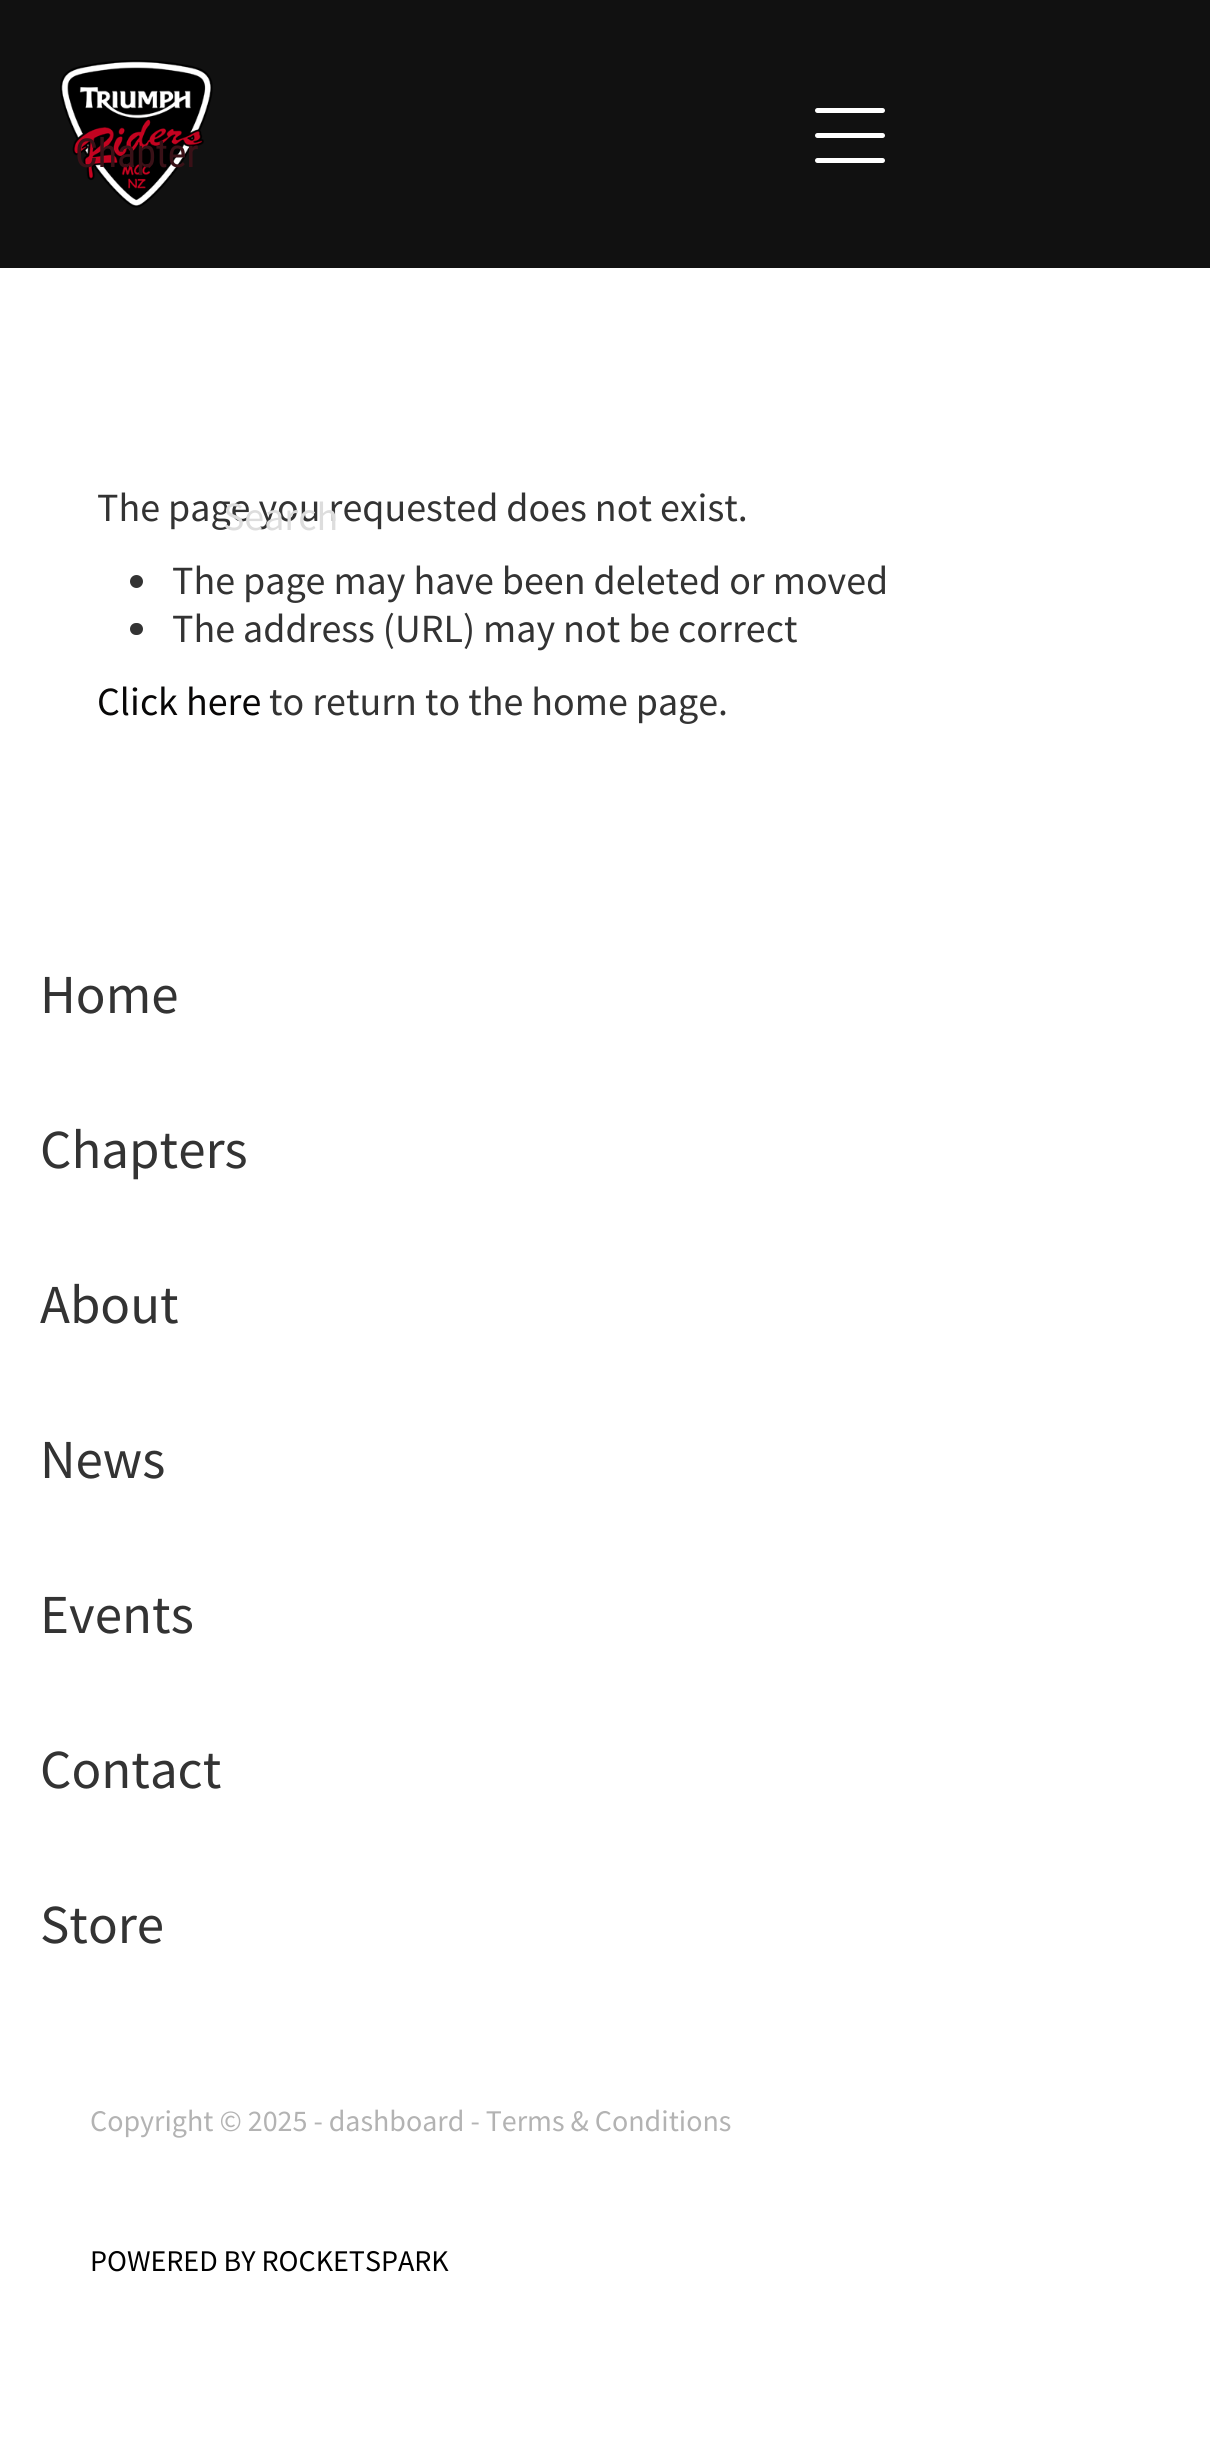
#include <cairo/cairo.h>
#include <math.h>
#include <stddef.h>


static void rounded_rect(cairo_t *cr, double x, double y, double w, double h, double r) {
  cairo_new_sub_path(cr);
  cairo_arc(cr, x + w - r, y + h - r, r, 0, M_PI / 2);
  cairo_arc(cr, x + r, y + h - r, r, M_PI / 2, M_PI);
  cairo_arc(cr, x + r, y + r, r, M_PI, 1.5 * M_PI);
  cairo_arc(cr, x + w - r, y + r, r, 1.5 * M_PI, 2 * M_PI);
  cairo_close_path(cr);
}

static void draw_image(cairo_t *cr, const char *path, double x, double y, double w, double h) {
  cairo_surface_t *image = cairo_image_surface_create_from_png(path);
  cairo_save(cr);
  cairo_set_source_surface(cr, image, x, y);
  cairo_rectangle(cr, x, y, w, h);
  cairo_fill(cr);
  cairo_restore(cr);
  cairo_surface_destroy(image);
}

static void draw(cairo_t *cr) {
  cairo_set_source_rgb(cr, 1, 1, 1);
  cairo_paint(cr);
  cairo_set_source_rgb(cr, 17 / 255.0, 17 / 255.0, 17 / 255.0);
  cairo_rectangle(cr, 0, 0, 1210, 268);
  cairo_fill(cr);
  draw_image(cr, "images/1.png", 60, 60, 153, 148);
  cairo_set_source_rgb(cr, 1, 1, 1);
  rounded_rect(cr, 815, 133, 70, 5, 2.5);
  cairo_fill(cr);
  rounded_rect(cr, 815, 108, 70, 5, 2.5);
  cairo_fill(cr);
  rounded_rect(cr, 815, 158, 70, 5, 2.5);
  cairo_fill(cr);
  cairo_set_source_rgb(cr, 51 / 255.0, 51 / 255.0, 51 / 255.0);
  cairo_arc(cr, 136.5, 581.5, 6.5, 0, 2 * M_PI);
  cairo_fill(cr);
  rounded_rect(cr, 130, 623, 13, 12, 6);
  cairo_fill(cr);
  cairo_select_font_face(cr, "Roboto Condensed", CAIRO_FONT_SLANT_NORMAL, CAIRO_FONT_WEIGHT_NORMAL);
  cairo_set_font_size(cr, 40);
  cairo_set_source_rgb(cr, 58 / 255.0, 17 / 255.0, 23 / 255.0);
  cairo_move_to(cr, 75, 167);
  cairo_show_text(cr, "Chapter");
  cairo_select_font_face(cr, "Source Sans Pro", CAIRO_FONT_SLANT_NORMAL, CAIRO_FONT_WEIGHT_NORMAL);
  cairo_set_source_rgb(cr, 51 / 255.0, 51 / 255.0, 51 / 255.0);
  cairo_move_to(cr, 97, 521);
  cairo_show_text(cr, "The page you requested does not exist.");
  cairo_move_to(cr, 172, 594);
  cairo_show_text(cr, "The page may have been deleted or moved");
  cairo_move_to(cr, 172, 642);
  cairo_show_text(cr, "The address (URL) may not be correct");
  cairo_set_source_rgb(cr, 8 / 255.0, 7 / 255.0, 7 / 255.0);
  cairo_move_to(cr, 97, 715);
  cairo_show_text(cr, "Click here");
  cairo_set_source_rgb(cr, 51 / 255.0, 51 / 255.0, 51 / 255.0);
  cairo_move_to(cr, 269, 715);
  cairo_show_text(cr, "to return to the home page.");
  cairo_set_font_size(cr, 55);
  cairo_move_to(cr, 40, 1013);
  cairo_show_text(cr, "Home");
  cairo_move_to(cr, 40, 1168);
  cairo_show_text(cr, "Chapters");
  cairo_move_to(cr, 40, 1323);
  cairo_show_text(cr, "About");
  cairo_move_to(cr, 40, 1478);
  cairo_show_text(cr, "News");
  cairo_move_to(cr, 40, 1633);
  cairo_show_text(cr, "Events");
  cairo_move_to(cr, 40, 1788);
  cairo_show_text(cr, "Contact");
  cairo_move_to(cr, 40, 1943);
  cairo_show_text(cr, "Store");
  cairo_set_font_size(cr, 30);
  cairo_set_source_rgb(cr, 179 / 255.0, 179 / 255.0, 179 / 255.0);
  cairo_move_to(cr, 90, 2131);
  cairo_show_text(cr, "Copyright © 2025 - dashboard - Terms & Conditions");
  cairo_set_source_rgb(cr, 0, 0, 0);
  cairo_move_to(cr, 90, 2271);
  cairo_show_text(cr, "POWERED BY ROCKETSPARK");
  cairo_set_font_size(cr, 40);
  cairo_set_source_rgb(cr, 221 / 255.0, 221 / 255.0, 221 / 255.0);
  cairo_move_to(cr, 223, 530);
  cairo_show_text(cr, "Search");
}

int main(void) {
  cairo_surface_t *surface = cairo_image_surface_create(CAIRO_FORMAT_RGB24, 1210, 2460);
  cairo_t *cr = cairo_create(surface);
  cairo_font_options_t *options = cairo_font_options_create();
  cairo_font_options_set_hint_metrics(options, CAIRO_HINT_METRICS_OFF);
  cairo_font_options_set_hint_style(options, CAIRO_HINT_STYLE_NONE);
  cairo_set_font_options(cr, options);
  cairo_set_miter_limit(cr, 4);
  draw(cr);
  cairo_surface_write_to_png(surface, "out.png");
  cairo_font_options_destroy(options);
  cairo_destroy(cr);
  cairo_surface_destroy(surface);
  return 0;
}
